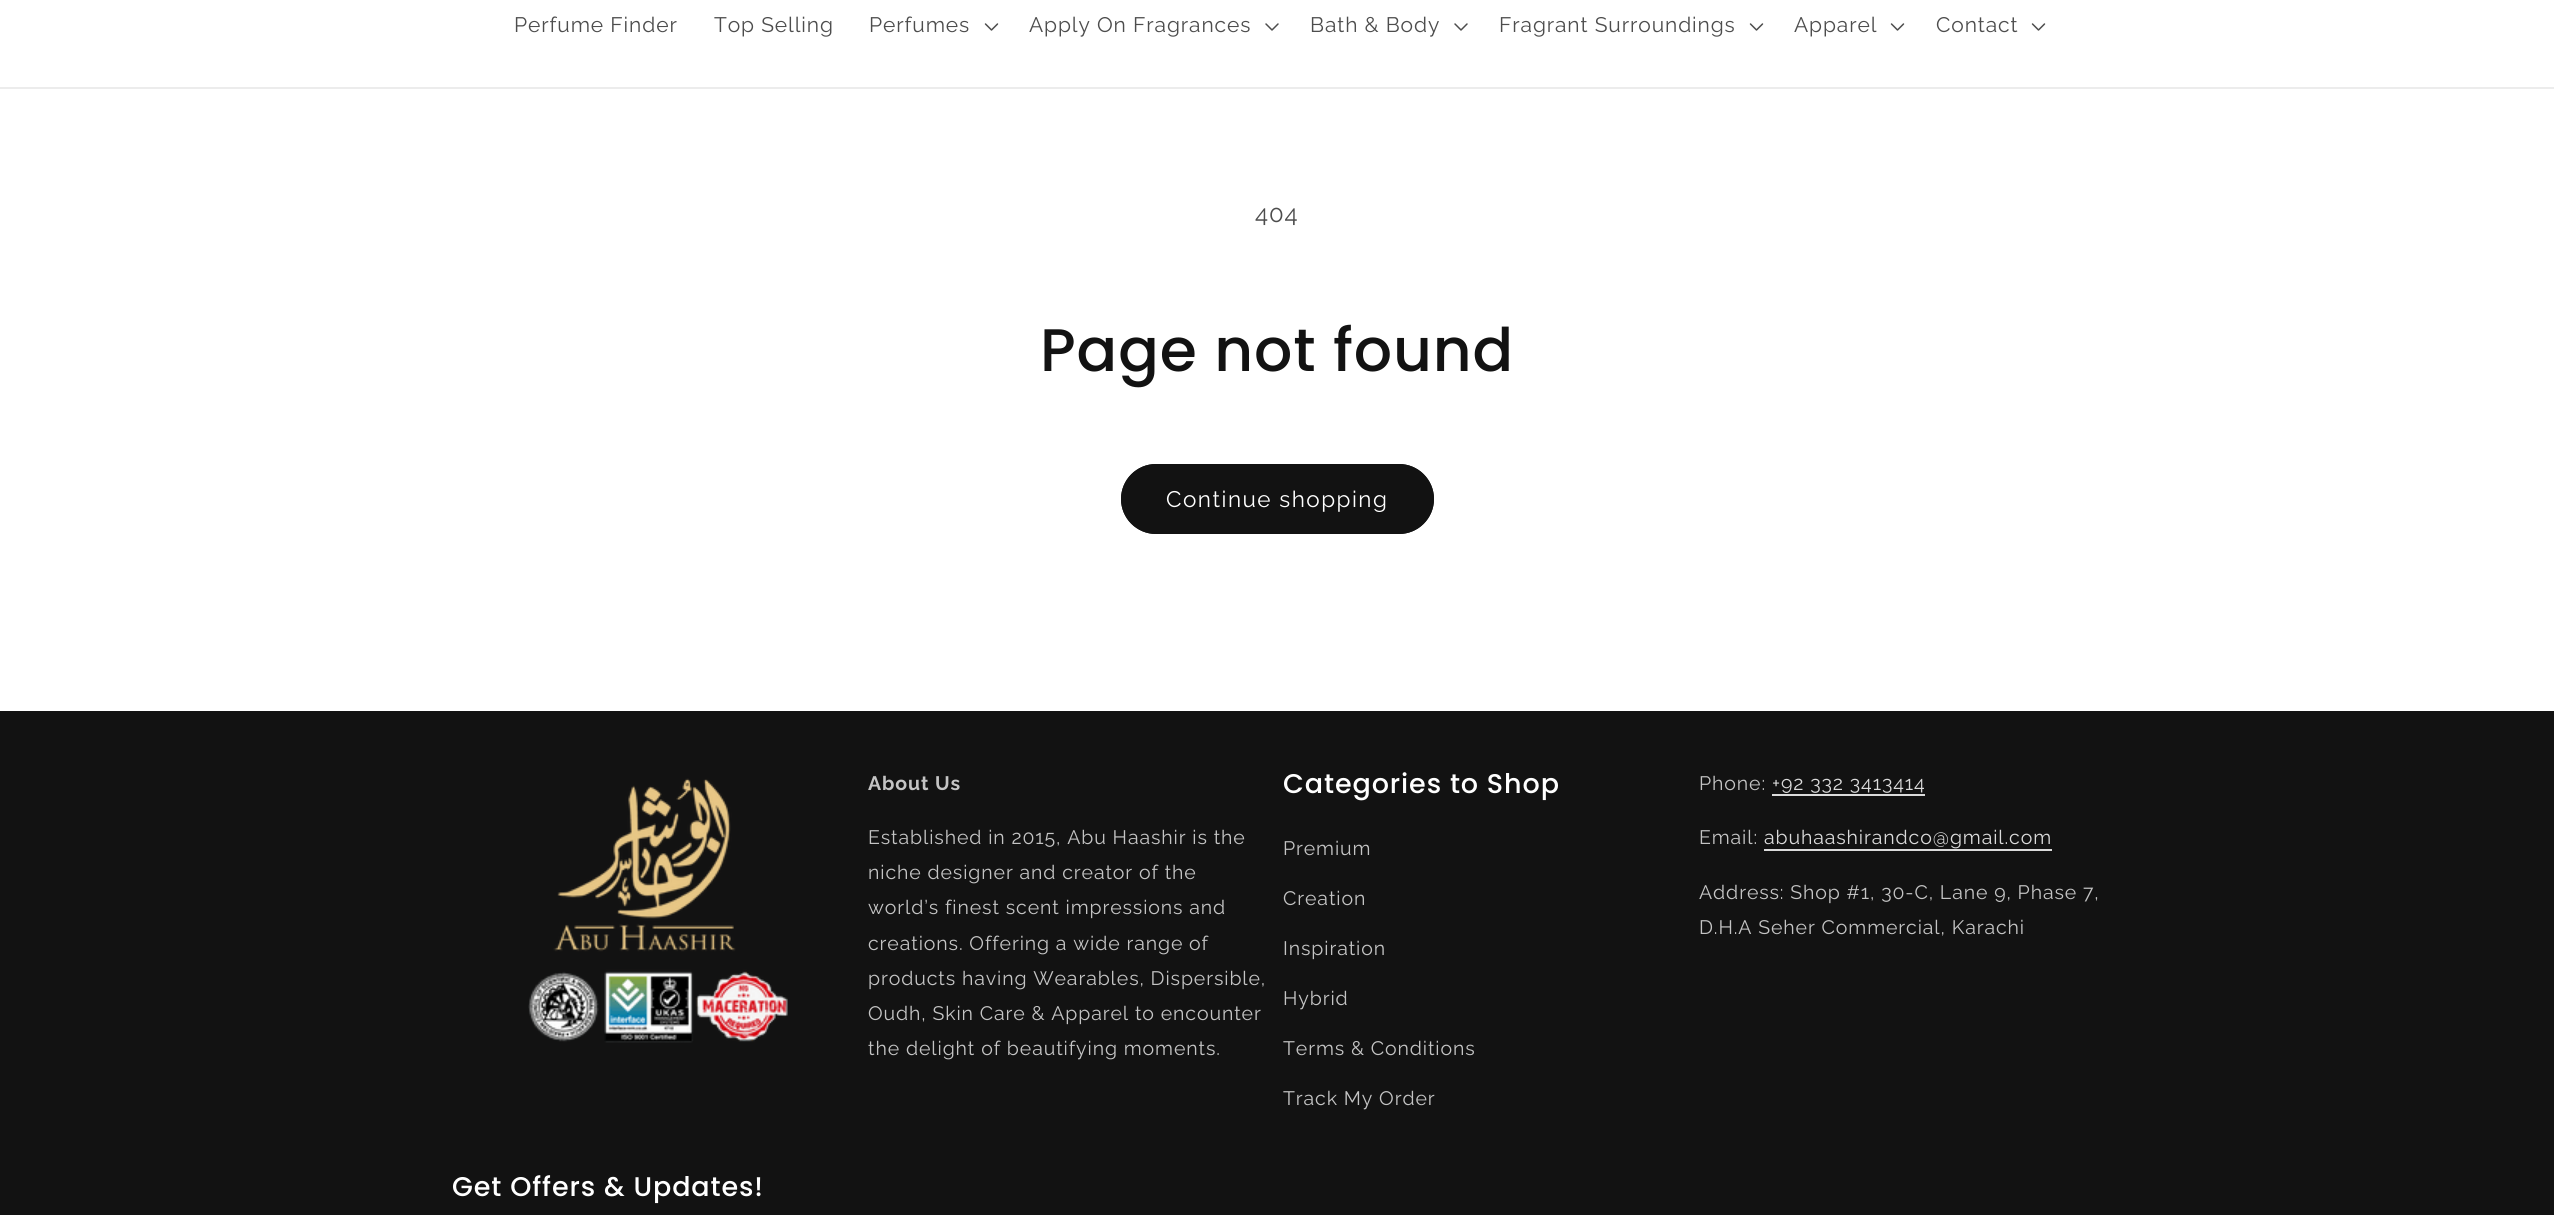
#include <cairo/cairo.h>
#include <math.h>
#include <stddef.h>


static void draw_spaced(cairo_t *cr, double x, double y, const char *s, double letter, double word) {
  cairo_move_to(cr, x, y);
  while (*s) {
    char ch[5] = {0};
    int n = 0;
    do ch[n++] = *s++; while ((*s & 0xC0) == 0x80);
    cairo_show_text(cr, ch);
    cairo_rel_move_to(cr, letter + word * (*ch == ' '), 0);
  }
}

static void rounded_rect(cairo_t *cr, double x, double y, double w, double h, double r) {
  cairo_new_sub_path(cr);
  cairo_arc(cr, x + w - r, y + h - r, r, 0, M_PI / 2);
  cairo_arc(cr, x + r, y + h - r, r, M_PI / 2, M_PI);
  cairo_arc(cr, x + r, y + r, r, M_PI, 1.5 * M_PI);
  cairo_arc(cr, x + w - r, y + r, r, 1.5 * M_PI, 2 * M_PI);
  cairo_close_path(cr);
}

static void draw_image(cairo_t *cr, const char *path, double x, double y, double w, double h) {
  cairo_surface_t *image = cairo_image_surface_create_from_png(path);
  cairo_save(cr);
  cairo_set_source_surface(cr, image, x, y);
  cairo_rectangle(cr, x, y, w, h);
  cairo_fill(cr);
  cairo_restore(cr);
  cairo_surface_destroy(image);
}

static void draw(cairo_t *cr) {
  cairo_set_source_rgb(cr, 1, 1, 1);
  cairo_paint(cr);
  cairo_set_source_rgb(cr, 236 / 255.0, 236 / 255.0, 236 / 255.0);
  cairo_rectangle(cr, 0, 87, 2554, 2);
  cairo_fill(cr);
  draw_image(cr, "images/1.png", 984, 23, 15, 8);
  draw_image(cr, "images/2.png", 1265, 23, 14, 8);
  draw_image(cr, "images/2.png", 1454, 23, 14, 8);
  draw_image(cr, "images/1.png", 1749, 23, 15, 8);
  draw_image(cr, "images/1.png", 1890, 23, 15, 8);
  draw_image(cr, "images/1.png", 2031, 23, 15, 8);
  cairo_set_source_rgb(cr, 18 / 255.0, 18 / 255.0, 18 / 255.0);
  rounded_rect(cr, 1121, 464, 313, 70, 35);
  cairo_fill(cr);
  rounded_rect(cr, 1122, 465, 311, 68, 34);
  cairo_stroke(cr);
  cairo_rectangle(cr, 0, 711, 2554, 504);
  cairo_fill(cr);
  draw_image(cr, "images/3.png", 528, 778, 260, 265);
  cairo_set_source_rgb(cr, 219 / 255.0, 219 / 255.0, 219 / 255.0);
  cairo_rectangle(cr, 1772, 794, 153, 2);
  cairo_fill(cr);
  cairo_rectangle(cr, 1764, 849, 288, 2);
  cairo_fill(cr);
  cairo_select_font_face(cr, "Raleway", CAIRO_FONT_SLANT_NORMAL, CAIRO_FONT_WEIGHT_NORMAL);
  cairo_set_font_size(cr, 21);
  cairo_set_source_rgb(cr, 77 / 255.0, 77 / 255.0, 77 / 255.0);
  draw_spaced(cr, 514, 32, "Perfume Finder", 0.9, 0);
  draw_spaced(cr, 714, 32, "Top Selling", 0.9, 0);
  draw_spaced(cr, 869, 32, "Perfumes", 0.9, 0);
  draw_spaced(cr, 1029, 32, "Apply On Fragrances", 0.9, 0);
  draw_spaced(cr, 1310, 32, "Bath & Body", 0.9, 0);
  draw_spaced(cr, 1499, 32, "Fragrant Surroundings", 0.9, 0);
  draw_spaced(cr, 1794, 32, "Apparel", 0.9, 0);
  draw_spaced(cr, 1936, 32, "Contact", 0.9, 0);
  cairo_set_font_size(cr, 24);
  draw_spaced(cr, 1255, 222, "404", 0.9, 0);
  cairo_select_font_face(cr, "Poppins Medium", CAIRO_FONT_SLANT_NORMAL, CAIRO_FONT_WEIGHT_NORMAL);
  cairo_set_font_size(cr, 60);
  cairo_set_source_rgb(cr, 18 / 255.0, 18 / 255.0, 18 / 255.0);
  draw_spaced(cr, 1040, 371, "Page not found", 0.9, 0);
  cairo_select_font_face(cr, "Raleway", CAIRO_FONT_SLANT_NORMAL, CAIRO_FONT_WEIGHT_NORMAL);
  cairo_set_font_size(cr, 22.5);
  cairo_set_source_rgb(cr, 1, 1, 1);
  draw_spaced(cr, 1166, 507, "Continue shopping", 1.5, 0);
  cairo_select_font_face(cr, "Raleway", CAIRO_FONT_SLANT_NORMAL, CAIRO_FONT_WEIGHT_BOLD);
  cairo_set_font_size(cr, 19.5);
  cairo_set_source_rgb(cr, 196 / 255.0, 196 / 255.0, 196 / 255.0);
  draw_spaced(cr, 868, 790, "About Us", 0.9, 0);
  cairo_select_font_face(cr, "Raleway", CAIRO_FONT_SLANT_NORMAL, CAIRO_FONT_WEIGHT_NORMAL);
  draw_spaced(cr, 868, 844, "Established in 2015, Abu Haashir is the", 0.9, 0);
  draw_spaced(cr, 868, 879, "niche designer and creator of the", 0.9, 0);
  draw_spaced(cr, 868, 914, "world’s finest scent impressions and", 0.9, 0);
  draw_spaced(cr, 868, 950, "creations. Offering a wide range of", 0.9, 0);
  draw_spaced(cr, 868, 985, "products having Wearables, Dispersible,", 0.9, 0);
  draw_spaced(cr, 868, 1020, "Oudh, Skin Care & Apparel to encounter", 0.9, 0);
  draw_spaced(cr, 868, 1055, "the delight of beautifying moments.", 0.9, 0);
  cairo_select_font_face(cr, "Poppins Medium", CAIRO_FONT_SLANT_NORMAL, CAIRO_FONT_WEIGHT_NORMAL);
  cairo_set_font_size(cr, 27);
  cairo_set_source_rgb(cr, 1, 1, 1);
  draw_spaced(cr, 1283, 793, "Categories to Shop", 0.9, 0);
  cairo_select_font_face(cr, "Raleway", CAIRO_FONT_SLANT_NORMAL, CAIRO_FONT_WEIGHT_NORMAL);
  cairo_set_font_size(cr, 19.5);
  cairo_set_source_rgb(cr, 196 / 255.0, 196 / 255.0, 196 / 255.0);
  draw_spaced(cr, 1283, 855, "Premium", 0.9, 0);
  draw_spaced(cr, 1283, 905, "Creation", 0.9, 0);
  draw_spaced(cr, 1283, 955, "Inspiration", 0.9, 0);
  draw_spaced(cr, 1283, 1005, "Hybrid", 0.9, 0);
  draw_spaced(cr, 1283, 1055, "Terms & Conditions", 0.9, 0);
  draw_spaced(cr, 1283, 1105, "Track My Order", 0.9, 0);
  draw_spaced(cr, 1699, 790, "Phone:", 0.9, 0);
  cairo_set_source_rgb(cr, 219 / 255.0, 219 / 255.0, 219 / 255.0);
  draw_spaced(cr, 1772, 790, "+92 332 3413414", 0.9, 0);
  cairo_set_source_rgb(cr, 196 / 255.0, 196 / 255.0, 196 / 255.0);
  draw_spaced(cr, 1699, 844, "Email:", 0.9, 0);
  cairo_set_source_rgb(cr, 219 / 255.0, 219 / 255.0, 219 / 255.0);
  draw_spaced(cr, 1764, 844, "abuhaashirandco@gmail.com", 0.9, 0);
  cairo_set_source_rgb(cr, 196 / 255.0, 196 / 255.0, 196 / 255.0);
  draw_spaced(cr, 1699, 899, "Address: Shop #1, 30-C, Lane 9, Phase 7,", 0.9, 0);
  draw_spaced(cr, 1699, 934, "D.H.A Seher Commercial, Karachi", 0.9, 0);
  cairo_select_font_face(cr, "Poppins Medium", CAIRO_FONT_SLANT_NORMAL, CAIRO_FONT_WEIGHT_NORMAL);
  cairo_set_font_size(cr, 27);
  cairo_set_source_rgb(cr, 1, 1, 1);
  draw_spaced(cr, 452, 1196, "Get Offers & Updates!", 0.9, 0);
}

int main(void) {
  cairo_surface_t *surface = cairo_image_surface_create(CAIRO_FORMAT_RGB24, 2554, 1215);
  cairo_t *cr = cairo_create(surface);
  cairo_font_options_t *options = cairo_font_options_create();
  cairo_font_options_set_hint_metrics(options, CAIRO_HINT_METRICS_OFF);
  cairo_font_options_set_hint_style(options, CAIRO_HINT_STYLE_NONE);
  cairo_set_font_options(cr, options);
  cairo_set_miter_limit(cr, 4);
  draw(cr);
  cairo_surface_write_to_png(surface, "out.png");
  cairo_font_options_destroy(options);
  cairo_destroy(cr);
  cairo_surface_destroy(surface);
  return 0;
}
